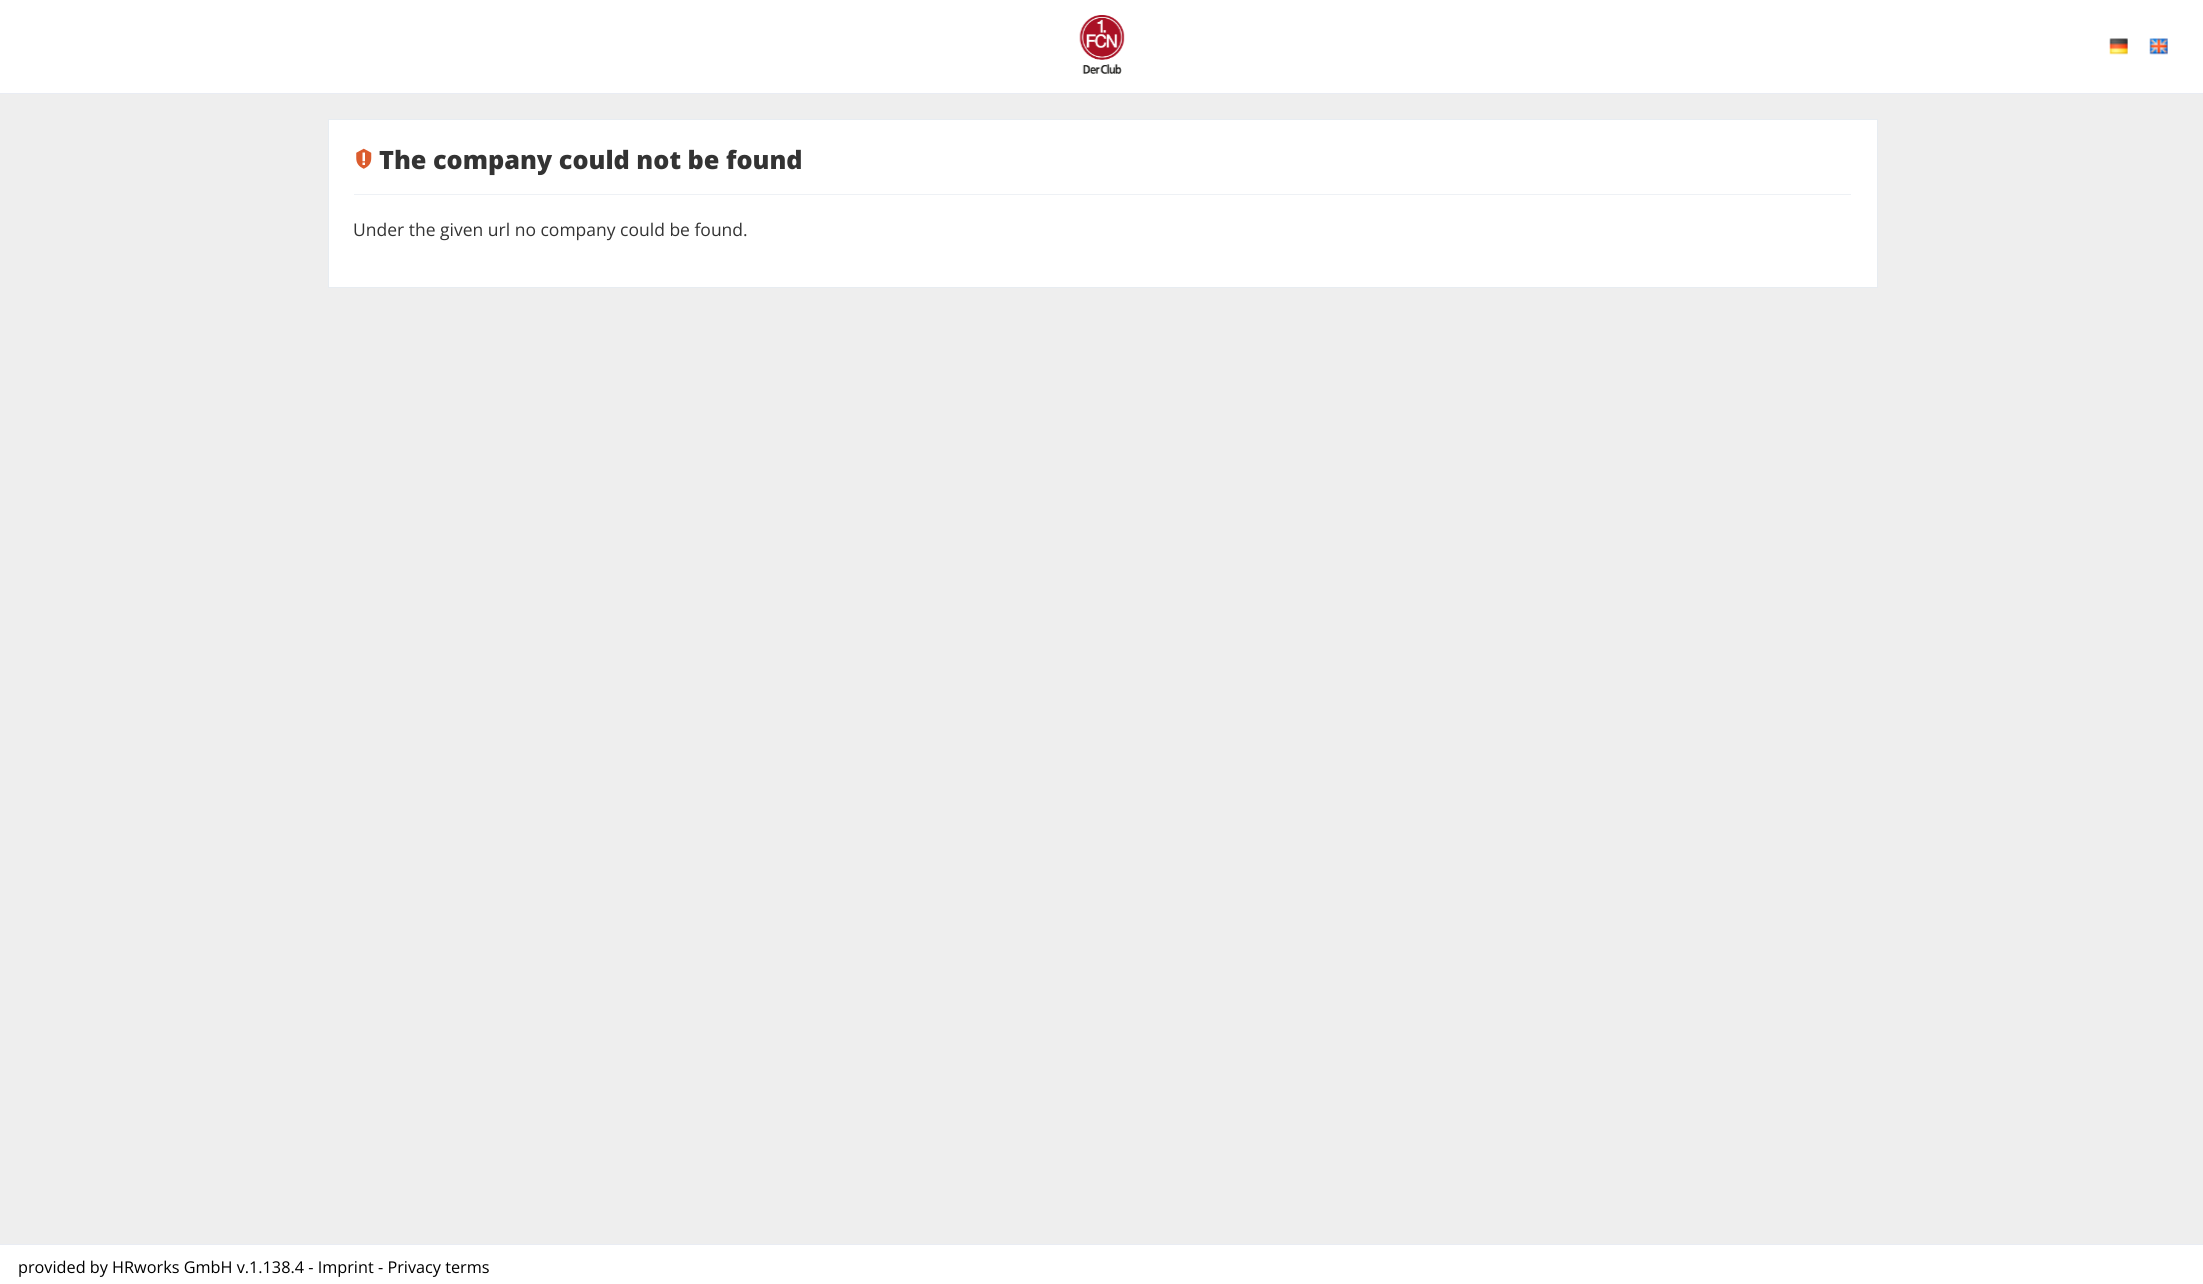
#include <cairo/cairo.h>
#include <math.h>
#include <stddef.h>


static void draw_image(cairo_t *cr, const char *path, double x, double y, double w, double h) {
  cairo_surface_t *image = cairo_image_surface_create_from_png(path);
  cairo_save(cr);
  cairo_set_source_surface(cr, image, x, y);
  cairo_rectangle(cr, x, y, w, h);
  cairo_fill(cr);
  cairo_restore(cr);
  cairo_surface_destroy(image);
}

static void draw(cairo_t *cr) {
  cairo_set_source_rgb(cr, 238 / 255.0, 238 / 255.0, 238 / 255.0);
  cairo_paint(cr);
  cairo_set_source_rgb(cr, 1, 1, 1);
  cairo_rectangle(cr, 0, 0, 2203, 93);
  cairo_fill(cr);
  cairo_set_source_rgb(cr, 233 / 255.0, 236 / 255.0, 243 / 255.0);
  cairo_rectangle(cr, 0, 93, 2203, 1);
  cairo_fill(cr);
  draw_image(cr, "images/1.png", 1079, 15, 46, 59);
  draw_image(cr, "images/2.png", 2109, 38, 19, 17);
  draw_image(cr, "images/3.png", 2149, 38, 19, 17);
  cairo_set_source_rgb(cr, 1, 1, 1);
  cairo_rectangle(cr, 328.5, 119.5, 1549, 168);
  cairo_fill_preserve(cr);
  cairo_set_source_rgb(cr, 231 / 255.0, 236 / 255.0, 241 / 255.0);
  cairo_set_line_width(cr, 1);
  cairo_stroke(cr);
  cairo_set_source_rgb(cr, 238 / 255.0, 241 / 255.0, 245 / 255.0);
  cairo_rectangle(cr, 354, 194, 1497, 1);
  cairo_fill(cr);
  draw_image(cr, "images/4.png", 356, 148, 16, 21);
  cairo_set_source_rgb(cr, 1, 1, 1);
  cairo_rectangle(cr, 0, 1245, 2203, 39);
  cairo_fill(cr);
  cairo_set_source_rgb(cr, 233 / 255.0, 236 / 255.0, 243 / 255.0);
  cairo_rectangle(cr, 0, 1244, 2203, 1);
  cairo_fill(cr);
  cairo_select_font_face(cr, "Open Sans ExtraBold", CAIRO_FONT_SLANT_NORMAL, CAIRO_FONT_WEIGHT_NORMAL);
  cairo_set_font_size(cr, 25.25);
  cairo_set_source_rgb(cr, 51 / 255.0, 51 / 255.0, 51 / 255.0);
  cairo_move_to(cr, 379, 169);
  cairo_show_text(cr, "The company could not be found");
  cairo_select_font_face(cr, "Open Sans", CAIRO_FONT_SLANT_NORMAL, CAIRO_FONT_WEIGHT_NORMAL);
  cairo_set_font_size(cr, 17.5);
  cairo_move_to(cr, 353, 236);
  cairo_show_text(cr, "Under the given url no company could be found.");
  cairo_set_font_size(cr, 16.25);
  cairo_set_source_rgb(cr, 0, 0, 0);
  cairo_move_to(cr, 18, 1273);
  cairo_show_text(cr, "provided by HRworks GmbH v.1.138.4 - Imprint - Privacy terms");
}

int main(void) {
  cairo_surface_t *surface = cairo_image_surface_create(CAIRO_FORMAT_RGB24, 2203, 1284);
  cairo_t *cr = cairo_create(surface);
  cairo_font_options_t *options = cairo_font_options_create();
  cairo_font_options_set_hint_metrics(options, CAIRO_HINT_METRICS_OFF);
  cairo_font_options_set_hint_style(options, CAIRO_HINT_STYLE_NONE);
  cairo_set_font_options(cr, options);
  cairo_set_miter_limit(cr, 4);
  draw(cr);
  cairo_surface_write_to_png(surface, "out.png");
  cairo_font_options_destroy(options);
  cairo_destroy(cr);
  cairo_surface_destroy(surface);
  return 0;
}
